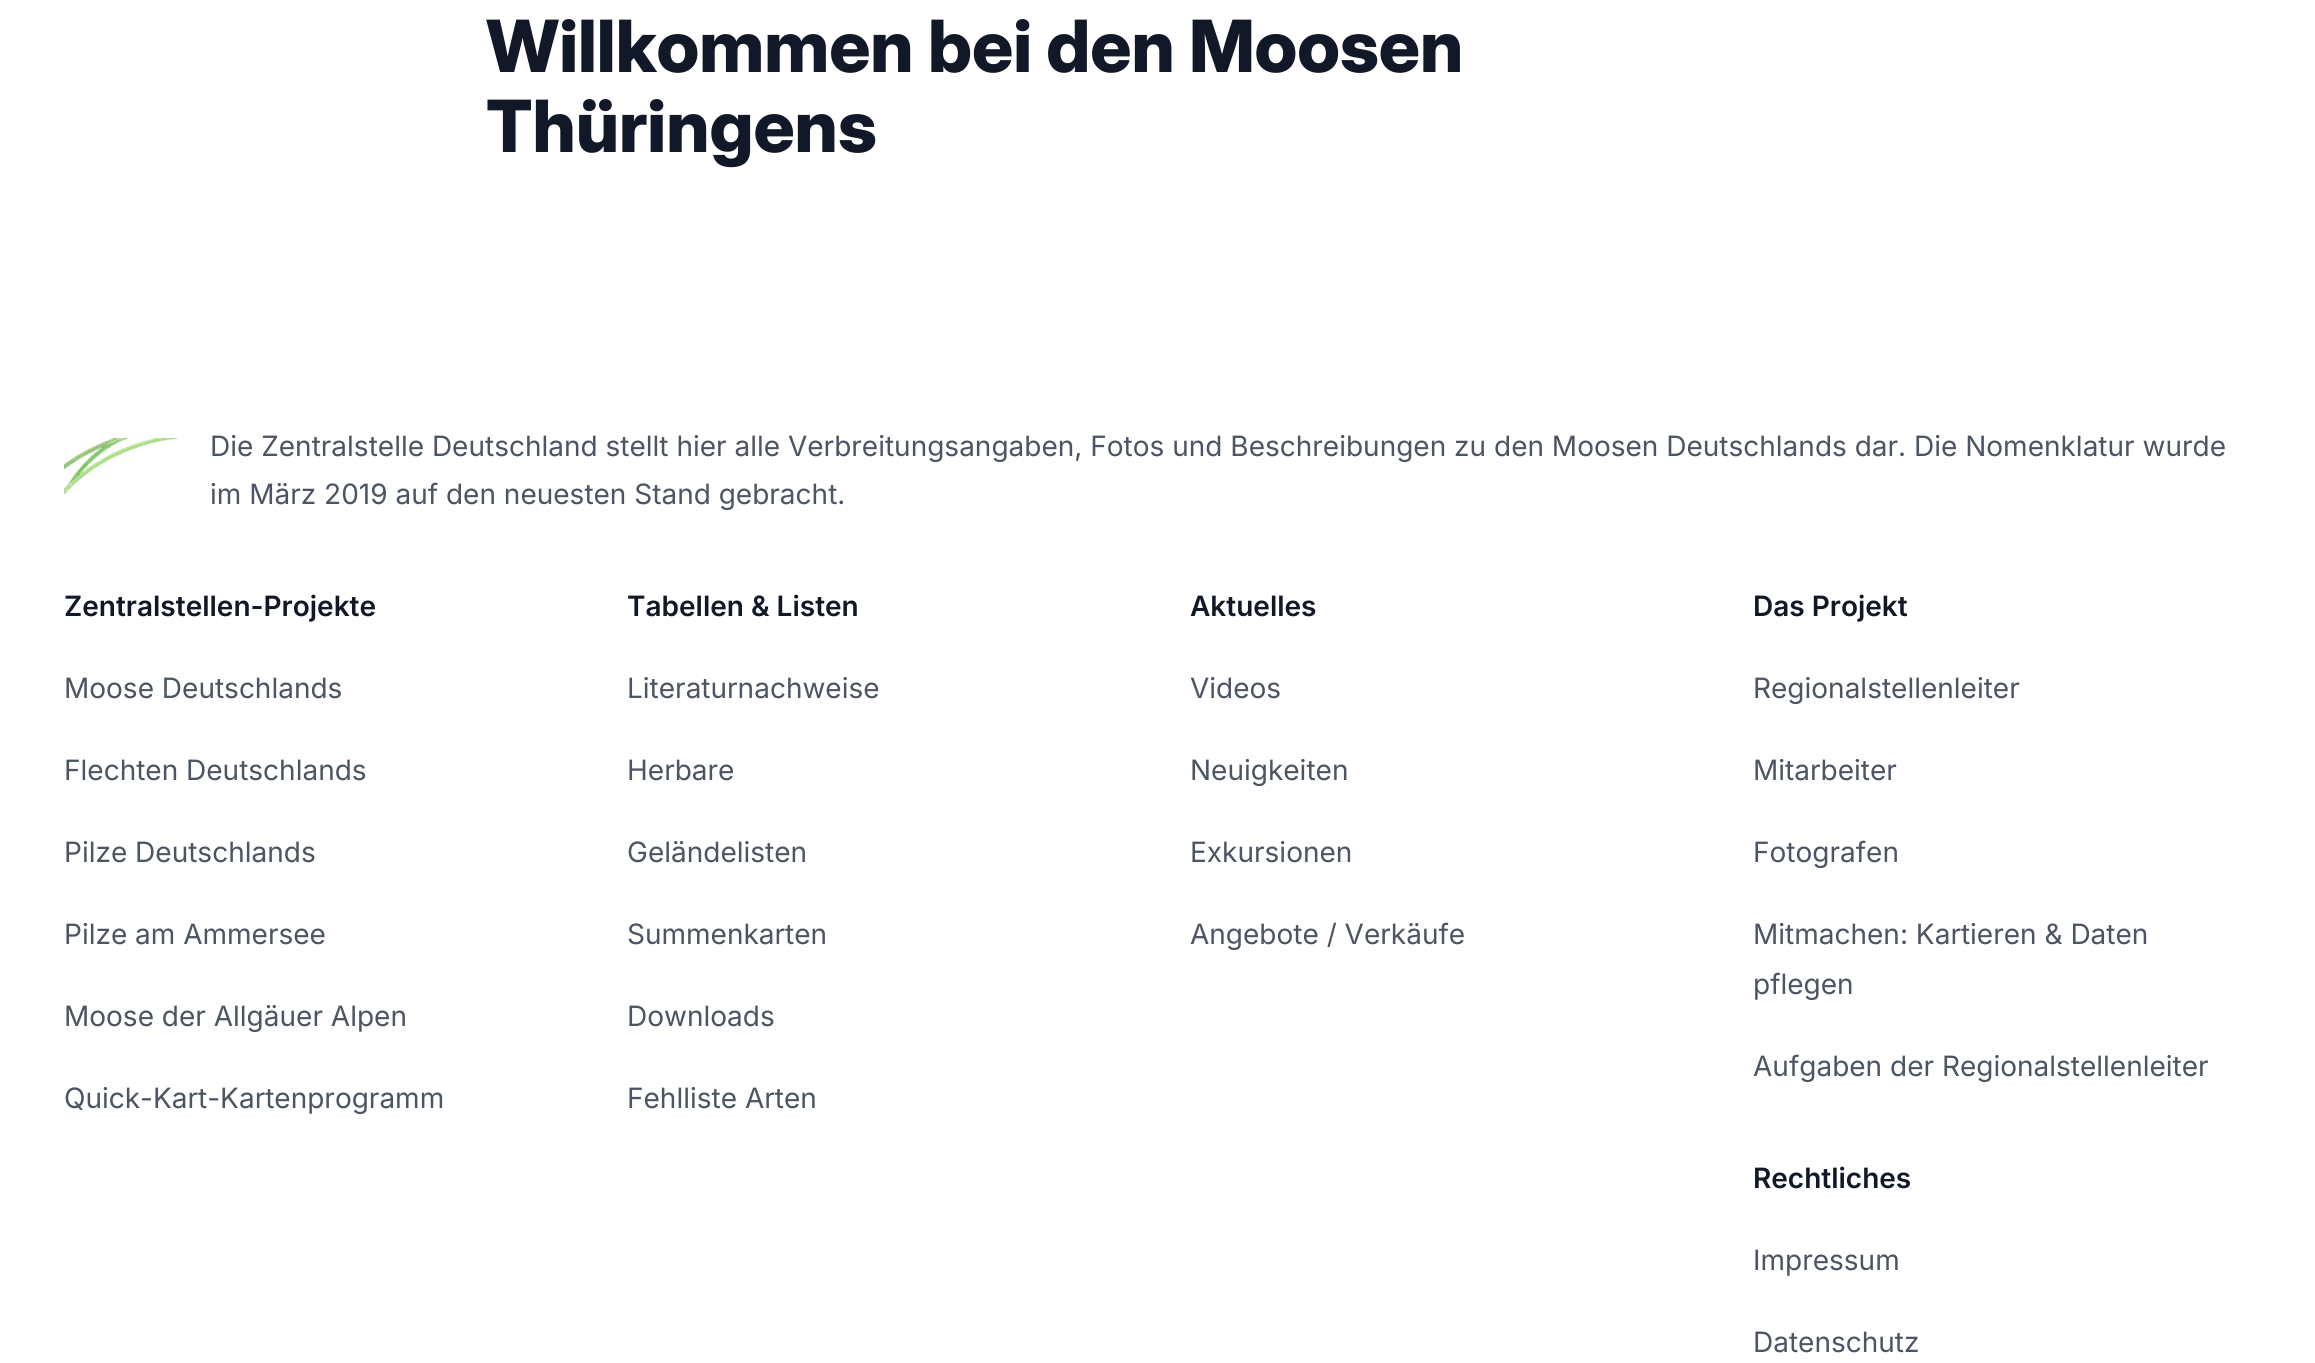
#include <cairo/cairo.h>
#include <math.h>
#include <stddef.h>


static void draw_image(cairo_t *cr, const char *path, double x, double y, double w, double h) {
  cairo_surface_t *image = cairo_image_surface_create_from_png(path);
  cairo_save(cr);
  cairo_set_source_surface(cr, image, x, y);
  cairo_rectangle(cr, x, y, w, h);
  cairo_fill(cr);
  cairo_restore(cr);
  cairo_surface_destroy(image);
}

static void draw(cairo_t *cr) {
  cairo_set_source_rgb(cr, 1, 1, 1);
  cairo_paint(cr);
  draw_image(cr, "images/1.png", 64, 438, 114, 56);
  cairo_select_font_face(cr, "Inter ExtraBold", CAIRO_FONT_SLANT_NORMAL, CAIRO_FONT_WEIGHT_NORMAL);
  cairo_set_font_size(cr, 72);
  cairo_set_source_rgb(cr, 17 / 255.0, 24 / 255.0, 39 / 255.0);
  cairo_move_to(cr, 486, 72);
  cairo_show_text(cr, "Willkommen bei den Moosen");
  cairo_move_to(cr, 486, 152);
  cairo_show_text(cr, "Thüringens");
  cairo_select_font_face(cr, "Inter", CAIRO_FONT_SLANT_NORMAL, CAIRO_FONT_WEIGHT_NORMAL);
  cairo_set_font_size(cr, 28);
  cairo_set_source_rgb(cr, 75 / 255.0, 85 / 255.0, 99 / 255.0);
  cairo_move_to(cr, 210, 456);
  cairo_show_text(cr, "Die Zentralstelle Deutschland stellt hier alle Verbreitungsangaben, Fotos und Beschreibungen zu den Moosen Deutschlands dar. Die Nomenklatur wurde");
  cairo_move_to(cr, 210, 504);
  cairo_show_text(cr, "im März 2019 auf den neuesten Stand gebracht.");
  cairo_select_font_face(cr, "Inter SemiBold", CAIRO_FONT_SLANT_NORMAL, CAIRO_FONT_WEIGHT_NORMAL);
  cairo_set_source_rgb(cr, 17 / 255.0, 24 / 255.0, 39 / 255.0);
  cairo_move_to(cr, 64, 616);
  cairo_show_text(cr, "Zentralstellen-Projekte");
  cairo_select_font_face(cr, "Inter", CAIRO_FONT_SLANT_NORMAL, CAIRO_FONT_WEIGHT_NORMAL);
  cairo_set_source_rgb(cr, 75 / 255.0, 85 / 255.0, 99 / 255.0);
  cairo_move_to(cr, 64, 698);
  cairo_show_text(cr, "Moose Deutschlands");
  cairo_move_to(cr, 64, 780);
  cairo_show_text(cr, "Flechten Deutschlands");
  cairo_move_to(cr, 64, 862);
  cairo_show_text(cr, "Pilze Deutschlands");
  cairo_move_to(cr, 64, 944);
  cairo_show_text(cr, "Pilze am Ammersee");
  cairo_move_to(cr, 64, 1026);
  cairo_show_text(cr, "Moose der Allgäuer Alpen");
  cairo_move_to(cr, 64, 1108);
  cairo_show_text(cr, "Quick-Kart-Kartenprogramm");
  cairo_select_font_face(cr, "Inter SemiBold", CAIRO_FONT_SLANT_NORMAL, CAIRO_FONT_WEIGHT_NORMAL);
  cairo_set_source_rgb(cr, 17 / 255.0, 24 / 255.0, 39 / 255.0);
  cairo_move_to(cr, 627, 616);
  cairo_show_text(cr, "Tabellen & Listen");
  cairo_select_font_face(cr, "Inter", CAIRO_FONT_SLANT_NORMAL, CAIRO_FONT_WEIGHT_NORMAL);
  cairo_set_source_rgb(cr, 75 / 255.0, 85 / 255.0, 99 / 255.0);
  cairo_move_to(cr, 627, 698);
  cairo_show_text(cr, "Literaturnachweise");
  cairo_move_to(cr, 627, 780);
  cairo_show_text(cr, "Herbare");
  cairo_move_to(cr, 627, 862);
  cairo_show_text(cr, "Geländelisten");
  cairo_move_to(cr, 627, 944);
  cairo_show_text(cr, "Summenkarten");
  cairo_move_to(cr, 627, 1026);
  cairo_show_text(cr, "Downloads");
  cairo_move_to(cr, 627, 1108);
  cairo_show_text(cr, "Fehlliste Arten");
  cairo_select_font_face(cr, "Inter SemiBold", CAIRO_FONT_SLANT_NORMAL, CAIRO_FONT_WEIGHT_NORMAL);
  cairo_set_source_rgb(cr, 17 / 255.0, 24 / 255.0, 39 / 255.0);
  cairo_move_to(cr, 1190, 616);
  cairo_show_text(cr, "Aktuelles");
  cairo_select_font_face(cr, "Inter", CAIRO_FONT_SLANT_NORMAL, CAIRO_FONT_WEIGHT_NORMAL);
  cairo_set_source_rgb(cr, 75 / 255.0, 85 / 255.0, 99 / 255.0);
  cairo_move_to(cr, 1190, 698);
  cairo_show_text(cr, "Videos");
  cairo_move_to(cr, 1190, 780);
  cairo_show_text(cr, "Neuigkeiten");
  cairo_move_to(cr, 1190, 862);
  cairo_show_text(cr, "Exkursionen");
  cairo_move_to(cr, 1190, 944);
  cairo_show_text(cr, "Angebote / Verkäufe");
  cairo_select_font_face(cr, "Inter SemiBold", CAIRO_FONT_SLANT_NORMAL, CAIRO_FONT_WEIGHT_NORMAL);
  cairo_set_source_rgb(cr, 17 / 255.0, 24 / 255.0, 39 / 255.0);
  cairo_move_to(cr, 1753, 616);
  cairo_show_text(cr, "Das Projekt");
  cairo_select_font_face(cr, "Inter", CAIRO_FONT_SLANT_NORMAL, CAIRO_FONT_WEIGHT_NORMAL);
  cairo_set_source_rgb(cr, 75 / 255.0, 85 / 255.0, 99 / 255.0);
  cairo_move_to(cr, 1753, 698);
  cairo_show_text(cr, "Regionalstellenleiter");
  cairo_move_to(cr, 1753, 780);
  cairo_show_text(cr, "Mitarbeiter");
  cairo_move_to(cr, 1753, 862);
  cairo_show_text(cr, "Fotografen");
  cairo_move_to(cr, 1753, 944);
  cairo_show_text(cr, "Mitmachen: Kartieren & Daten");
  cairo_move_to(cr, 1753, 994);
  cairo_show_text(cr, "pflegen");
  cairo_move_to(cr, 1753, 1076);
  cairo_show_text(cr, "Aufgaben der Regionalstellenleiter");
  cairo_select_font_face(cr, "Inter SemiBold", CAIRO_FONT_SLANT_NORMAL, CAIRO_FONT_WEIGHT_NORMAL);
  cairo_set_source_rgb(cr, 17 / 255.0, 24 / 255.0, 39 / 255.0);
  cairo_move_to(cr, 1753, 1188);
  cairo_show_text(cr, "Rechtliches");
  cairo_select_font_face(cr, "Inter", CAIRO_FONT_SLANT_NORMAL, CAIRO_FONT_WEIGHT_NORMAL);
  cairo_set_source_rgb(cr, 75 / 255.0, 85 / 255.0, 99 / 255.0);
  cairo_move_to(cr, 1753, 1270);
  cairo_show_text(cr, "Impressum");
  cairo_move_to(cr, 1753, 1352);
  cairo_show_text(cr, "Datenschutz");
}

int main(void) {
  cairo_surface_t *surface = cairo_image_surface_create(CAIRO_FORMAT_RGB24, 2315, 1363);
  cairo_t *cr = cairo_create(surface);
  cairo_font_options_t *options = cairo_font_options_create();
  cairo_font_options_set_hint_metrics(options, CAIRO_HINT_METRICS_OFF);
  cairo_font_options_set_hint_style(options, CAIRO_HINT_STYLE_NONE);
  cairo_set_font_options(cr, options);
  cairo_set_miter_limit(cr, 4);
  draw(cr);
  cairo_surface_write_to_png(surface, "out.png");
  cairo_font_options_destroy(options);
  cairo_destroy(cr);
  cairo_surface_destroy(surface);
  return 0;
}
